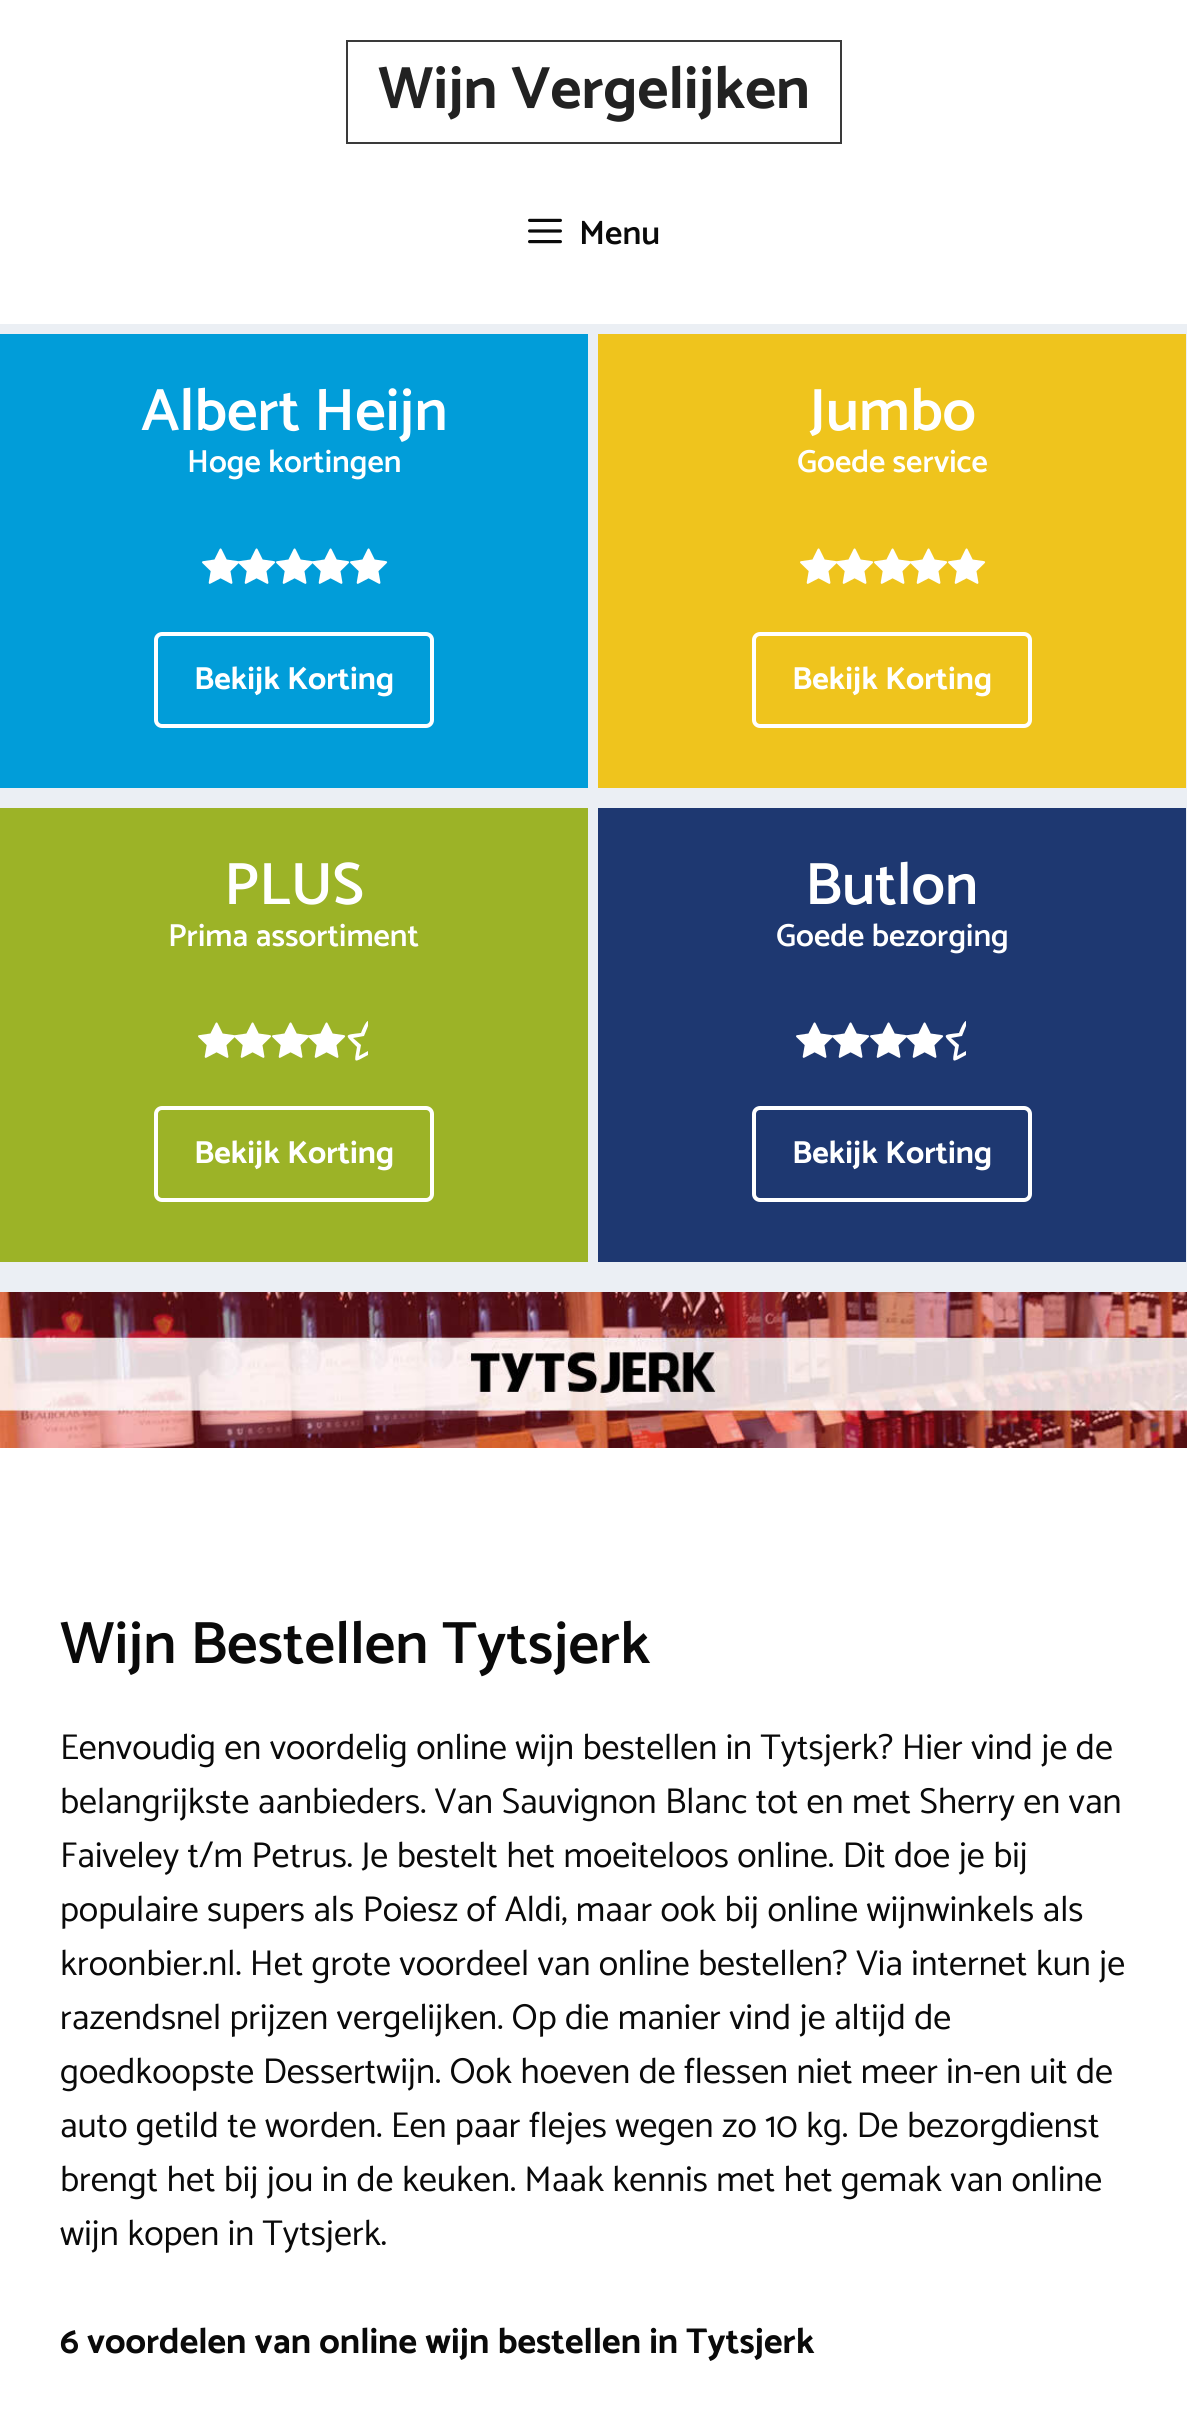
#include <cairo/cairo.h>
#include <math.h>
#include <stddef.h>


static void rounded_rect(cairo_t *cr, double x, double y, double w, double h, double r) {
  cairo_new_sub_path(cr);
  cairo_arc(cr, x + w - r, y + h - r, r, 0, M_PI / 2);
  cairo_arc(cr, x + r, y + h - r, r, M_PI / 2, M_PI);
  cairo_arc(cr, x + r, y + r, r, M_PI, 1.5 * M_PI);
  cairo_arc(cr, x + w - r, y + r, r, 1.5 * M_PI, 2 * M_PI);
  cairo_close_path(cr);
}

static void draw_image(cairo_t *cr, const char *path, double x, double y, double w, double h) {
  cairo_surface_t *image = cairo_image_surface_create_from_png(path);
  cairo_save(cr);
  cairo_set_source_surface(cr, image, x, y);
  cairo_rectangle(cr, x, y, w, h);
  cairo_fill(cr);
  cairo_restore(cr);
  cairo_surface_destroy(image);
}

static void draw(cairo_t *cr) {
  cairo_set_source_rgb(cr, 235 / 255.0, 239 / 255.0, 244 / 255.0);
  cairo_paint(cr);
  cairo_set_source_rgb(cr, 1, 1, 1);
  cairo_rectangle(cr, 0, 0, 1187, 324);
  cairo_fill(cr);
  cairo_rectangle(cr, 347, 41, 494, 102);
  cairo_set_source_rgb(cr, 58 / 255.0, 58 / 255.0, 58 / 255.0);
  cairo_stroke(cr);
  draw_image(cr, "images/1.png", 528, 218, 34, 26);
  cairo_set_source_rgb(cr, 1 / 255.0, 157 / 255.0, 217 / 255.0);
  cairo_rectangle(cr, 0, 334, 588, 454);
  cairo_fill(cr);
  draw_image(cr, "images/2.png", 202, 548, 37, 36);
  draw_image(cr, "images/3.png", 238, 548, 38, 36);
  draw_image(cr, "images/2.png", 276, 548, 37, 36);
  draw_image(cr, "images/3.png", 312, 548, 38, 36);
  draw_image(cr, "images/4.png", 350, 548, 38, 36);
  rounded_rect(cr, 156, 634, 276, 92, 6);
  cairo_set_source_rgb(cr, 1, 1, 1);
  cairo_set_line_width(cr, 4);
  cairo_stroke(cr);
  cairo_set_source_rgb(cr, 239 / 255.0, 196 / 255.0, 29 / 255.0);
  cairo_rectangle(cr, 598, 334, 588, 454);
  cairo_fill(cr);
  draw_image(cr, "images/5.png", 800, 548, 37, 36);
  draw_image(cr, "images/6.png", 836, 548, 38, 36);
  draw_image(cr, "images/5.png", 874, 548, 37, 36);
  draw_image(cr, "images/6.png", 910, 548, 38, 36);
  draw_image(cr, "images/7.png", 948, 548, 38, 36);
  rounded_rect(cr, 754, 634, 276, 92, 6);
  cairo_set_source_rgb(cr, 1, 1, 1);
  cairo_stroke(cr);
  cairo_set_source_rgb(cr, 156 / 255.0, 179 / 255.0, 39 / 255.0);
  cairo_rectangle(cr, 0, 808, 588, 454);
  cairo_fill(cr);
  draw_image(cr, "images/8.png", 198, 1022, 37, 36);
  draw_image(cr, "images/9.png", 234, 1022, 38, 36);
  draw_image(cr, "images/8.png", 272, 1022, 37, 36);
  draw_image(cr, "images/9.png", 308, 1022, 38, 36);
  cairo_set_source_rgb(cr, 1, 1, 1);
  cairo_new_path(cr);
  cairo_move_to(cr, 368, 1051);
  cairo_line_to(cr, 368, 1055);
  cairo_curve_to(cr, 353, 1063, 354, 1064, 357, 1047);
  cairo_curve_to(cr, 344, 1034, 344, 1035, 361, 1033);
  cairo_curve_to(cr, 362, 1030, 366, 1021, 368, 1021);
  cairo_line_to(cr, 368, 1026);
  cairo_line_to(cr, 364, 1036);
  cairo_line_to(cr, 353, 1038);
  cairo_line_to(cr, 361, 1045);
  cairo_line_to(cr, 359, 1056);
  cairo_close_path(cr);
  cairo_fill(cr);
  rounded_rect(cr, 156, 1108, 276, 92, 6);
  cairo_stroke(cr);
  cairo_set_source_rgb(cr, 30 / 255.0, 56 / 255.0, 113 / 255.0);
  cairo_rectangle(cr, 598, 808, 588, 454);
  cairo_fill(cr);
  draw_image(cr, "images/10.png", 796, 1022, 37, 36);
  draw_image(cr, "images/11.png", 832, 1022, 38, 36);
  draw_image(cr, "images/10.png", 870, 1022, 37, 36);
  draw_image(cr, "images/11.png", 906, 1022, 38, 36);
  cairo_set_source_rgb(cr, 1, 1, 1);
  cairo_new_path(cr);
  cairo_move_to(cr, 966, 1051);
  cairo_line_to(cr, 966, 1055);
  cairo_curve_to(cr, 951, 1063, 952, 1064, 955, 1047);
  cairo_curve_to(cr, 942, 1034, 942, 1035, 959, 1033);
  cairo_curve_to(cr, 960, 1030, 964, 1021, 966, 1021);
  cairo_line_to(cr, 966, 1026);
  cairo_line_to(cr, 962, 1036);
  cairo_line_to(cr, 951, 1038);
  cairo_line_to(cr, 959, 1045);
  cairo_line_to(cr, 957, 1056);
  cairo_close_path(cr);
  cairo_fill(cr);
  rounded_rect(cr, 754, 1108, 276, 92, 6);
  cairo_stroke(cr);
  cairo_rectangle(cr, 0, 1448, 1187, 961);
  cairo_fill(cr);
  draw_image(cr, "images/12.png", 0, 1292, 1187, 156);
  cairo_select_font_face(cr, "Catamaran", CAIRO_FONT_SLANT_NORMAL, CAIRO_FONT_WEIGHT_BOLD);
  cairo_set_font_size(cr, 60);
  cairo_set_source_rgb(cr, 34 / 255.0, 34 / 255.0, 34 / 255.0);
  cairo_move_to(cr, 378, 108);
  cairo_show_text(cr, "Wijn Vergelijken");
  cairo_select_font_face(cr, "Catamaran SemiBold", CAIRO_FONT_SLANT_NORMAL, CAIRO_FONT_WEIGHT_NORMAL);
  cairo_set_font_size(cr, 34);
  cairo_set_source_rgb(cr, 10 / 255.0, 10 / 255.0, 10 / 255.0);
  cairo_move_to(cr, 579, 244);
  cairo_show_text(cr, "Menu");
  cairo_set_font_size(cr, 60);
  cairo_set_source_rgb(cr, 1, 1, 1);
  cairo_move_to(cr, 141, 430);
  cairo_show_text(cr, "Albert Heijn");
  cairo_set_font_size(cr, 32);
  cairo_move_to(cr, 187, 472);
  cairo_show_text(cr, "Hoge kortingen");
  cairo_select_font_face(cr, "Catamaran", CAIRO_FONT_SLANT_NORMAL, CAIRO_FONT_WEIGHT_BOLD);
  cairo_move_to(cr, 194, 689);
  cairo_show_text(cr, "Bekijk Korting");
  cairo_select_font_face(cr, "Catamaran SemiBold", CAIRO_FONT_SLANT_NORMAL, CAIRO_FONT_WEIGHT_NORMAL);
  cairo_set_font_size(cr, 60);
  cairo_move_to(cr, 809, 430);
  cairo_show_text(cr, "Jumbo");
  cairo_set_font_size(cr, 32);
  cairo_move_to(cr, 797, 472);
  cairo_show_text(cr, "Goede service");
  cairo_select_font_face(cr, "Catamaran", CAIRO_FONT_SLANT_NORMAL, CAIRO_FONT_WEIGHT_BOLD);
  cairo_move_to(cr, 792, 689);
  cairo_show_text(cr, "Bekijk Korting");
  cairo_select_font_face(cr, "Catamaran SemiBold", CAIRO_FONT_SLANT_NORMAL, CAIRO_FONT_WEIGHT_NORMAL);
  cairo_set_font_size(cr, 60);
  cairo_move_to(cr, 224, 904);
  cairo_show_text(cr, "PLUS");
  cairo_set_font_size(cr, 32);
  cairo_move_to(cr, 168, 946);
  cairo_show_text(cr, "Prima assortiment");
  cairo_select_font_face(cr, "Catamaran", CAIRO_FONT_SLANT_NORMAL, CAIRO_FONT_WEIGHT_BOLD);
  cairo_move_to(cr, 194, 1163);
  cairo_show_text(cr, "Bekijk Korting");
  cairo_select_font_face(cr, "Catamaran SemiBold", CAIRO_FONT_SLANT_NORMAL, CAIRO_FONT_WEIGHT_NORMAL);
  cairo_set_font_size(cr, 60);
  cairo_move_to(cr, 805, 904);
  cairo_show_text(cr, "Butlon");
  cairo_set_font_size(cr, 32);
  cairo_move_to(cr, 776, 946);
  cairo_show_text(cr, "Goede bezorging");
  cairo_select_font_face(cr, "Catamaran", CAIRO_FONT_SLANT_NORMAL, CAIRO_FONT_WEIGHT_BOLD);
  cairo_move_to(cr, 792, 1163);
  cairo_show_text(cr, "Bekijk Korting");
  cairo_select_font_face(cr, "Catamaran SemiBold", CAIRO_FONT_SLANT_NORMAL, CAIRO_FONT_WEIGHT_NORMAL);
  cairo_set_font_size(cr, 60);
  cairo_set_source_rgb(cr, 10 / 255.0, 10 / 255.0, 10 / 255.0);
  cairo_move_to(cr, 60, 1663);
  cairo_show_text(cr, "Wijn Bestellen Tytsjerk");
  cairo_select_font_face(cr, "Catamaran", CAIRO_FONT_SLANT_NORMAL, CAIRO_FONT_WEIGHT_NORMAL);
  cairo_set_font_size(cr, 36);
  cairo_move_to(cr, 60, 1759);
  cairo_show_text(cr, "Eenvoudig en voordelig online wijn bestellen in Tytsjerk? Hier vind je de");
  cairo_move_to(cr, 60, 1813);
  cairo_show_text(cr, "belangrijkste aanbieders. Van Sauvignon Blanc tot en met Sherry en van");
  cairo_move_to(cr, 60, 1867);
  cairo_show_text(cr, "Faiveley t/m Petrus. Je bestelt het moeiteloos online. Dit doe je bij");
  cairo_move_to(cr, 60, 1921);
  cairo_show_text(cr, "populaire supers als Poiesz of Aldi, maar ook bij online wijnwinkels als");
  cairo_move_to(cr, 60, 1975);
  cairo_show_text(cr, "kroonbier.nl. Het grote voordeel van online bestellen? Via internet kun je");
  cairo_move_to(cr, 60, 2029);
  cairo_show_text(cr, "razendsnel prijzen vergelijken. Op die manier vind je altijd de");
  cairo_move_to(cr, 60, 2083);
  cairo_show_text(cr, "goedkoopste Dessertwijn. Ook hoeven de flessen niet meer in-en uit de");
  cairo_move_to(cr, 60, 2137);
  cairo_show_text(cr, "auto getild te worden. Een paar flejes wegen zo 10 kg. De bezorgdienst");
  cairo_move_to(cr, 60, 2191);
  cairo_show_text(cr, "brengt het bij jou in de keuken. Maak kennis met het gemak van online");
  cairo_move_to(cr, 60, 2245);
  cairo_show_text(cr, "wijn kopen in Tytsjerk.");
  cairo_select_font_face(cr, "Catamaran", CAIRO_FONT_SLANT_NORMAL, CAIRO_FONT_WEIGHT_BOLD);
  cairo_move_to(cr, 60, 2353);
  cairo_show_text(cr, "6 voordelen van online wijn bestellen in Tytsjerk");
}

int main(void) {
  cairo_surface_t *surface = cairo_image_surface_create(CAIRO_FORMAT_RGB24, 1187, 2409);
  cairo_t *cr = cairo_create(surface);
  cairo_font_options_t *options = cairo_font_options_create();
  cairo_font_options_set_hint_metrics(options, CAIRO_HINT_METRICS_OFF);
  cairo_font_options_set_hint_style(options, CAIRO_HINT_STYLE_NONE);
  cairo_set_font_options(cr, options);
  cairo_set_miter_limit(cr, 4);
  draw(cr);
  cairo_surface_write_to_png(surface, "out.png");
  cairo_font_options_destroy(options);
  cairo_destroy(cr);
  cairo_surface_destroy(surface);
  return 0;
}
